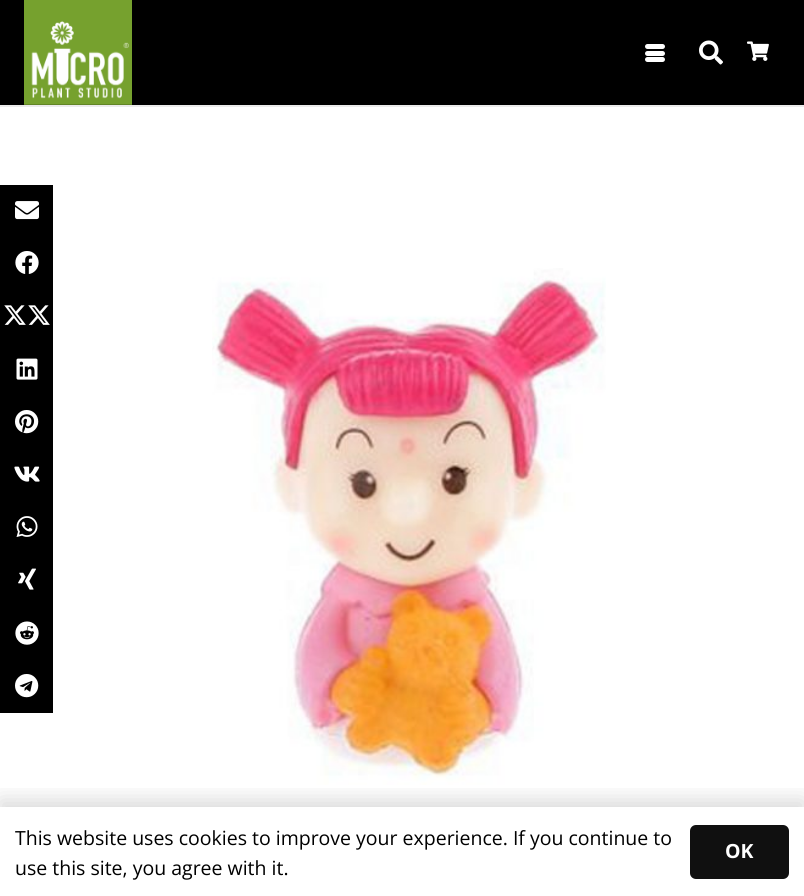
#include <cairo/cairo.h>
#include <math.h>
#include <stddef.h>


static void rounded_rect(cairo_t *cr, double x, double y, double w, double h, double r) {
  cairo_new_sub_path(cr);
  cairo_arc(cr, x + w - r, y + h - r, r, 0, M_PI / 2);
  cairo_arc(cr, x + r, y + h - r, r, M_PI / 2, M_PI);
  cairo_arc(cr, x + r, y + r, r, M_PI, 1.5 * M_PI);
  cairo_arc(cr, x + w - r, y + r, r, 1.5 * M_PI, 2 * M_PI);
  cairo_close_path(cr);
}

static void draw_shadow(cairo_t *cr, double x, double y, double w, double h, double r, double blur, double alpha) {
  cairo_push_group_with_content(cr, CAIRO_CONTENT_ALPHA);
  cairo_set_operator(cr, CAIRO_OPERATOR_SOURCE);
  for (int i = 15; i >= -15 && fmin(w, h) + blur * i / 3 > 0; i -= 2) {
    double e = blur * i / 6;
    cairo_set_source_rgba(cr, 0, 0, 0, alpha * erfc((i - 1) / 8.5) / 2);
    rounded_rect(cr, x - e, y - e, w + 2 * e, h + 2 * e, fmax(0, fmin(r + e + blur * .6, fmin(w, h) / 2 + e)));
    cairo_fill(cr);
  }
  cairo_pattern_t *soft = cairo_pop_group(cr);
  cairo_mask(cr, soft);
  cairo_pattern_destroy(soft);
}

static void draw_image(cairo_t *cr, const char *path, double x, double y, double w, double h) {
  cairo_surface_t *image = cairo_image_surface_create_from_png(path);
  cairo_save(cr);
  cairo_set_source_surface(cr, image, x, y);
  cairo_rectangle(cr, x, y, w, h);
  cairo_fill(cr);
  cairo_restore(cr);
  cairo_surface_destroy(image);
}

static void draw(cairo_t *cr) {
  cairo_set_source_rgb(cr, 1, 1, 1);
  cairo_paint(cr);
  cairo_set_source_rgb(cr, 235 / 255.0, 235 / 255.0, 235 / 255.0);
  cairo_rectangle(cr, 0, 105, 804, 2);
  cairo_fill(cr);
  cairo_set_source_rgb(cr, 0, 0, 0);
  cairo_rectangle(cr, 0, 0, 804, 105);
  cairo_fill(cr);
  draw_image(cr, "images/1.png", 24, 0, 108, 105);
  cairo_set_source_rgb(cr, 1, 1, 1);
  rounded_rect(cr, 645, 51, 20, 5, 2.5);
  cairo_fill(cr);
  rounded_rect(cr, 645, 44, 20, 5, 2.5);
  cairo_fill(cr);
  rounded_rect(cr, 645, 57, 20, 5, 2.5);
  cairo_fill(cr);
  draw_image(cr, "images/2.png", 699, 40, 24, 25);
  draw_image(cr, "images/3.png", 747, 41, 22, 20);
  cairo_set_source_rgb(cr, 0, 0, 0);
  cairo_rectangle(cr, 0, 185, 53, 528);
  cairo_fill(cr);
  draw_image(cr, "images/4.png", 15, 201, 24, 19);
  draw_image(cr, "images/5.png", 15, 251, 24, 23);
  draw_image(cr, "images/6.png", 4, 305, 22, 20);
  draw_image(cr, "images/7.png", 28, 305, 22, 20);
  draw_image(cr, "images/8.png", 16, 358, 22, 22);
  draw_image(cr, "images/9.png", 15, 410, 24, 24);
  draw_image(cr, "images/10.png", 14, 466, 26, 16);
  draw_image(cr, "images/11.png", 16, 516, 22, 21);
  draw_image(cr, "images/12.png", 18, 568, 18, 22);
  draw_image(cr, "images/13.png", 15, 621, 24, 24);
  draw_image(cr, "images/14.png", 15, 674, 24, 24);
  draw_image(cr, "images/15.png", 212, 268, 394, 517);
  cairo_save(cr);
  cairo_rectangle(cr, 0, 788, 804, 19);
  cairo_clip(cr);
  cairo_set_source_rgb(cr, 0, 0, 0);
  draw_shadow(cr, 0, 800, 804, 90, 0, 11, 0.15);
  cairo_restore(cr);
  cairo_set_source_rgb(cr, 16 / 255.0, 16 / 255.0, 16 / 255.0);
  rounded_rect(cr, 690, 825, 99, 54, 6);
  cairo_fill(cr);
  cairo_select_font_face(cr, "Open Sans", CAIRO_FONT_SLANT_NORMAL, CAIRO_FONT_WEIGHT_NORMAL);
  cairo_set_font_size(cr, 19.5);
  cairo_set_source_rgb(cr, 0, 0, 0);
  cairo_move_to(cr, 15, 845);
  cairo_show_text(cr, "This website uses cookies to improve your experience. If you continue to");
  cairo_move_to(cr, 15, 875);
  cairo_show_text(cr, "use this site, you agree with it.");
  cairo_select_font_face(cr, "Open Sans", CAIRO_FONT_SLANT_NORMAL, CAIRO_FONT_WEIGHT_BOLD);
  cairo_set_source_rgb(cr, 1, 1, 1);
  cairo_move_to(cr, 725, 858);
  cairo_show_text(cr, "OK");
}

int main(void) {
  cairo_surface_t *surface = cairo_image_surface_create(CAIRO_FORMAT_RGB24, 804, 896);
  cairo_t *cr = cairo_create(surface);
  cairo_font_options_t *options = cairo_font_options_create();
  cairo_font_options_set_hint_metrics(options, CAIRO_HINT_METRICS_OFF);
  cairo_font_options_set_hint_style(options, CAIRO_HINT_STYLE_NONE);
  cairo_set_font_options(cr, options);
  cairo_set_miter_limit(cr, 4);
  draw(cr);
  cairo_surface_write_to_png(surface, "out.png");
  cairo_font_options_destroy(options);
  cairo_destroy(cr);
  cairo_surface_destroy(surface);
  return 0;
}
